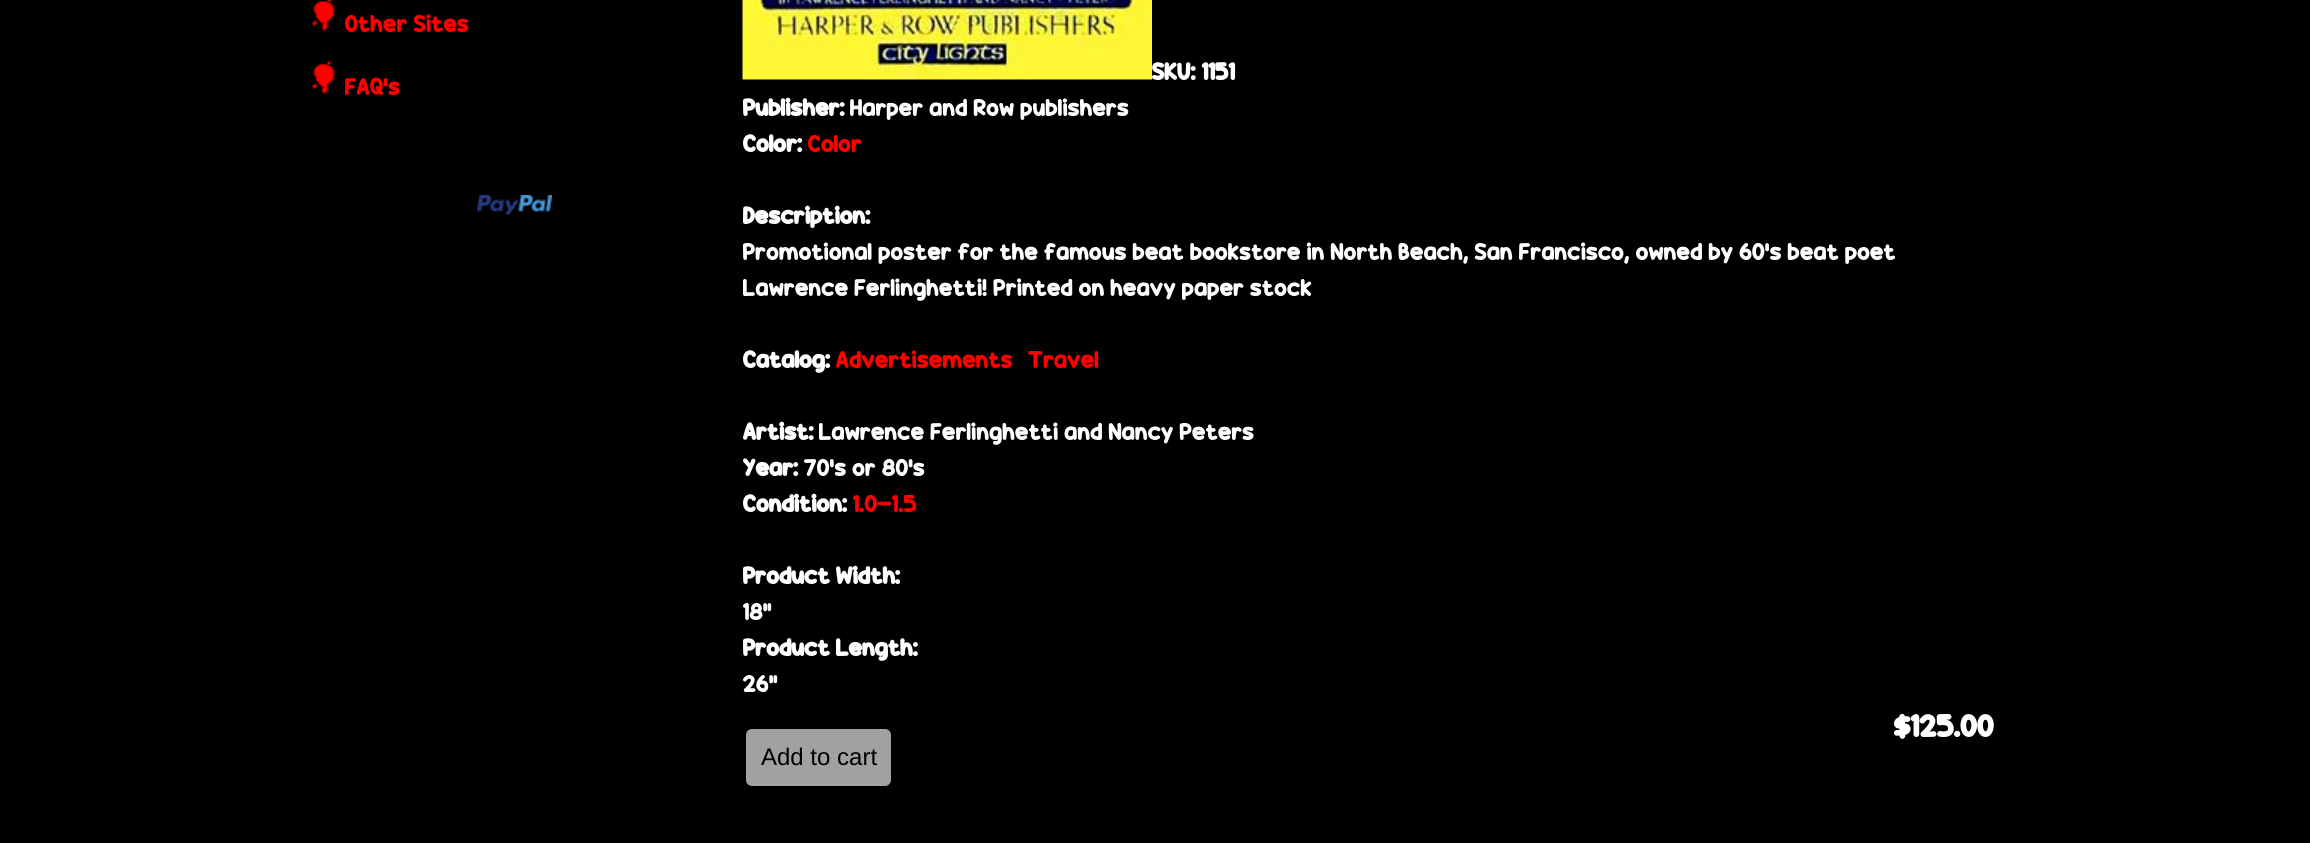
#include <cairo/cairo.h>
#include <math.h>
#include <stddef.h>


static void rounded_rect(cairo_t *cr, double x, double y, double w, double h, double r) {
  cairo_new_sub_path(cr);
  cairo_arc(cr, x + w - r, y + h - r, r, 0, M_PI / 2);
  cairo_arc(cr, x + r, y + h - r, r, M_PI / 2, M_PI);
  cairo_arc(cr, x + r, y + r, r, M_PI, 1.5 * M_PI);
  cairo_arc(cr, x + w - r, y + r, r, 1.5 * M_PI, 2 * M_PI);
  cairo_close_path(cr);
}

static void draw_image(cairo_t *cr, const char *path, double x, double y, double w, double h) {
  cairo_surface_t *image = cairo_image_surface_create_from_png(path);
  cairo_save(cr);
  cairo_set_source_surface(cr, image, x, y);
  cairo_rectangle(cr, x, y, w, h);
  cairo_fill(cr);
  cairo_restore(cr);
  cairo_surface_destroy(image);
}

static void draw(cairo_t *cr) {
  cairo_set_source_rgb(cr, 0, 0, 0);
  cairo_paint(cr);
  draw_image(cr, "images/1.png", 311, 0, 24, 32);
  draw_image(cr, "images/2.png", 311, 60, 24, 35);
  draw_image(cr, "images/3.png", 477, 195, 75, 20);
  draw_image(cr, "images/4.png", 742, 0, 410, 80);
  cairo_set_source_rgb(cr, 161 / 255.0, 161 / 255.0, 161 / 255.0);
  rounded_rect(cr, 744.5, 727.5, 148, 60, 7.5);
  cairo_fill_preserve(cr);
  cairo_set_source_rgb(cr, 0, 0, 0);
  cairo_set_line_width(cr, 3);
  cairo_stroke(cr);
  cairo_select_font_face(cr, "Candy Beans", CAIRO_FONT_SLANT_NORMAL, CAIRO_FONT_WEIGHT_NORMAL);
  cairo_set_font_size(cr, 24);
  cairo_set_source_rgb(cr, 1, 0, 0);
  cairo_move_to(cr, 345, 32);
  cairo_show_text(cr, "Other Sites");
  cairo_move_to(cr, 345, 95);
  cairo_show_text(cr, "FAQ's");
  cairo_select_font_face(cr, "Candy Beans", CAIRO_FONT_SLANT_NORMAL, CAIRO_FONT_WEIGHT_BOLD);
  cairo_set_source_rgb(cr, 1, 1, 1);
  cairo_move_to(cr, 1152, 80);
  cairo_show_text(cr, "SKU: 1151");
  cairo_move_to(cr, 743, 116);
  cairo_show_text(cr, "Publisher:");
  cairo_select_font_face(cr, "Candy Beans", CAIRO_FONT_SLANT_NORMAL, CAIRO_FONT_WEIGHT_NORMAL);
  cairo_move_to(cr, 850, 116);
  cairo_show_text(cr, "Harper and Row publishers");
  cairo_select_font_face(cr, "Candy Beans", CAIRO_FONT_SLANT_NORMAL, CAIRO_FONT_WEIGHT_BOLD);
  cairo_move_to(cr, 743, 152);
  cairo_show_text(cr, "Color:");
  cairo_select_font_face(cr, "Candy Beans", CAIRO_FONT_SLANT_NORMAL, CAIRO_FONT_WEIGHT_NORMAL);
  cairo_set_source_rgb(cr, 1, 0, 0);
  cairo_move_to(cr, 808, 152);
  cairo_show_text(cr, "Color");
  cairo_select_font_face(cr, "Candy Beans", CAIRO_FONT_SLANT_NORMAL, CAIRO_FONT_WEIGHT_BOLD);
  cairo_set_source_rgb(cr, 1, 1, 1);
  cairo_move_to(cr, 743, 224);
  cairo_show_text(cr, "Description:");
  cairo_select_font_face(cr, "Candy Beans", CAIRO_FONT_SLANT_NORMAL, CAIRO_FONT_WEIGHT_NORMAL);
  cairo_move_to(cr, 743, 260);
  cairo_show_text(cr, "Promotional poster for the famous beat bookstore in North Beach, San Francisco, owned by 60's beat poet");
  cairo_move_to(cr, 743, 296);
  cairo_show_text(cr, "Lawrence Ferlinghetti! Printed on heavy paper stock");
  cairo_select_font_face(cr, "Candy Beans", CAIRO_FONT_SLANT_NORMAL, CAIRO_FONT_WEIGHT_BOLD);
  cairo_move_to(cr, 743, 368);
  cairo_show_text(cr, "Catalog:");
  cairo_select_font_face(cr, "Candy Beans", CAIRO_FONT_SLANT_NORMAL, CAIRO_FONT_WEIGHT_NORMAL);
  cairo_set_source_rgb(cr, 1, 0, 0);
  cairo_move_to(cr, 836, 368);
  cairo_show_text(cr, "Advertisements");
  cairo_move_to(cr, 1028, 368);
  cairo_show_text(cr, "Travel");
  cairo_select_font_face(cr, "Candy Beans", CAIRO_FONT_SLANT_NORMAL, CAIRO_FONT_WEIGHT_BOLD);
  cairo_set_source_rgb(cr, 1, 1, 1);
  cairo_move_to(cr, 743, 440);
  cairo_show_text(cr, "Artist:");
  cairo_select_font_face(cr, "Candy Beans", CAIRO_FONT_SLANT_NORMAL, CAIRO_FONT_WEIGHT_NORMAL);
  cairo_move_to(cr, 819, 440);
  cairo_show_text(cr, "Lawrence Ferlinghetti and Nancy Peters");
  cairo_select_font_face(cr, "Candy Beans", CAIRO_FONT_SLANT_NORMAL, CAIRO_FONT_WEIGHT_BOLD);
  cairo_move_to(cr, 743, 476);
  cairo_show_text(cr, "Year:");
  cairo_select_font_face(cr, "Candy Beans", CAIRO_FONT_SLANT_NORMAL, CAIRO_FONT_WEIGHT_NORMAL);
  cairo_move_to(cr, 804, 476);
  cairo_show_text(cr, "70’s or 80’s");
  cairo_select_font_face(cr, "Candy Beans", CAIRO_FONT_SLANT_NORMAL, CAIRO_FONT_WEIGHT_BOLD);
  cairo_move_to(cr, 743, 512);
  cairo_show_text(cr, "Condition:");
  cairo_select_font_face(cr, "Candy Beans", CAIRO_FONT_SLANT_NORMAL, CAIRO_FONT_WEIGHT_NORMAL);
  cairo_set_source_rgb(cr, 1, 0, 0);
  cairo_move_to(cr, 853, 512);
  cairo_show_text(cr, "1.0-1.5");
  cairo_select_font_face(cr, "Candy Beans", CAIRO_FONT_SLANT_NORMAL, CAIRO_FONT_WEIGHT_BOLD);
  cairo_set_source_rgb(cr, 1, 1, 1);
  cairo_move_to(cr, 743, 584);
  cairo_show_text(cr, "Product Width:");
  cairo_select_font_face(cr, "Candy Beans", CAIRO_FONT_SLANT_NORMAL, CAIRO_FONT_WEIGHT_NORMAL);
  cairo_move_to(cr, 743, 620);
  cairo_show_text(cr, "18”");
  cairo_select_font_face(cr, "Candy Beans", CAIRO_FONT_SLANT_NORMAL, CAIRO_FONT_WEIGHT_BOLD);
  cairo_move_to(cr, 743, 656);
  cairo_show_text(cr, "Product Length:");
  cairo_select_font_face(cr, "Candy Beans", CAIRO_FONT_SLANT_NORMAL, CAIRO_FONT_WEIGHT_NORMAL);
  cairo_move_to(cr, 743, 692);
  cairo_show_text(cr, "26”");
  cairo_select_font_face(cr, "Candy Beans", CAIRO_FONT_SLANT_NORMAL, CAIRO_FONT_WEIGHT_BOLD);
  cairo_set_font_size(cr, 31);
  cairo_move_to(cr, 1894, 737);
  cairo_show_text(cr, "$125.00");
  cairo_select_font_face(cr, "Liberation Sans", CAIRO_FONT_SLANT_NORMAL, CAIRO_FONT_WEIGHT_NORMAL);
  cairo_set_font_size(cr, 24);
  cairo_set_source_rgb(cr, 0, 0, 0);
  cairo_move_to(cr, 761, 765);
  cairo_show_text(cr, "Add to cart");
}

int main(void) {
  cairo_surface_t *surface = cairo_image_surface_create(CAIRO_FORMAT_RGB24, 2310, 843);
  cairo_t *cr = cairo_create(surface);
  cairo_font_options_t *options = cairo_font_options_create();
  cairo_font_options_set_hint_metrics(options, CAIRO_HINT_METRICS_OFF);
  cairo_font_options_set_hint_style(options, CAIRO_HINT_STYLE_NONE);
  cairo_set_font_options(cr, options);
  cairo_set_miter_limit(cr, 4);
  draw(cr);
  cairo_surface_write_to_png(surface, "out.png");
  cairo_font_options_destroy(options);
  cairo_destroy(cr);
  cairo_surface_destroy(surface);
  return 0;
}
